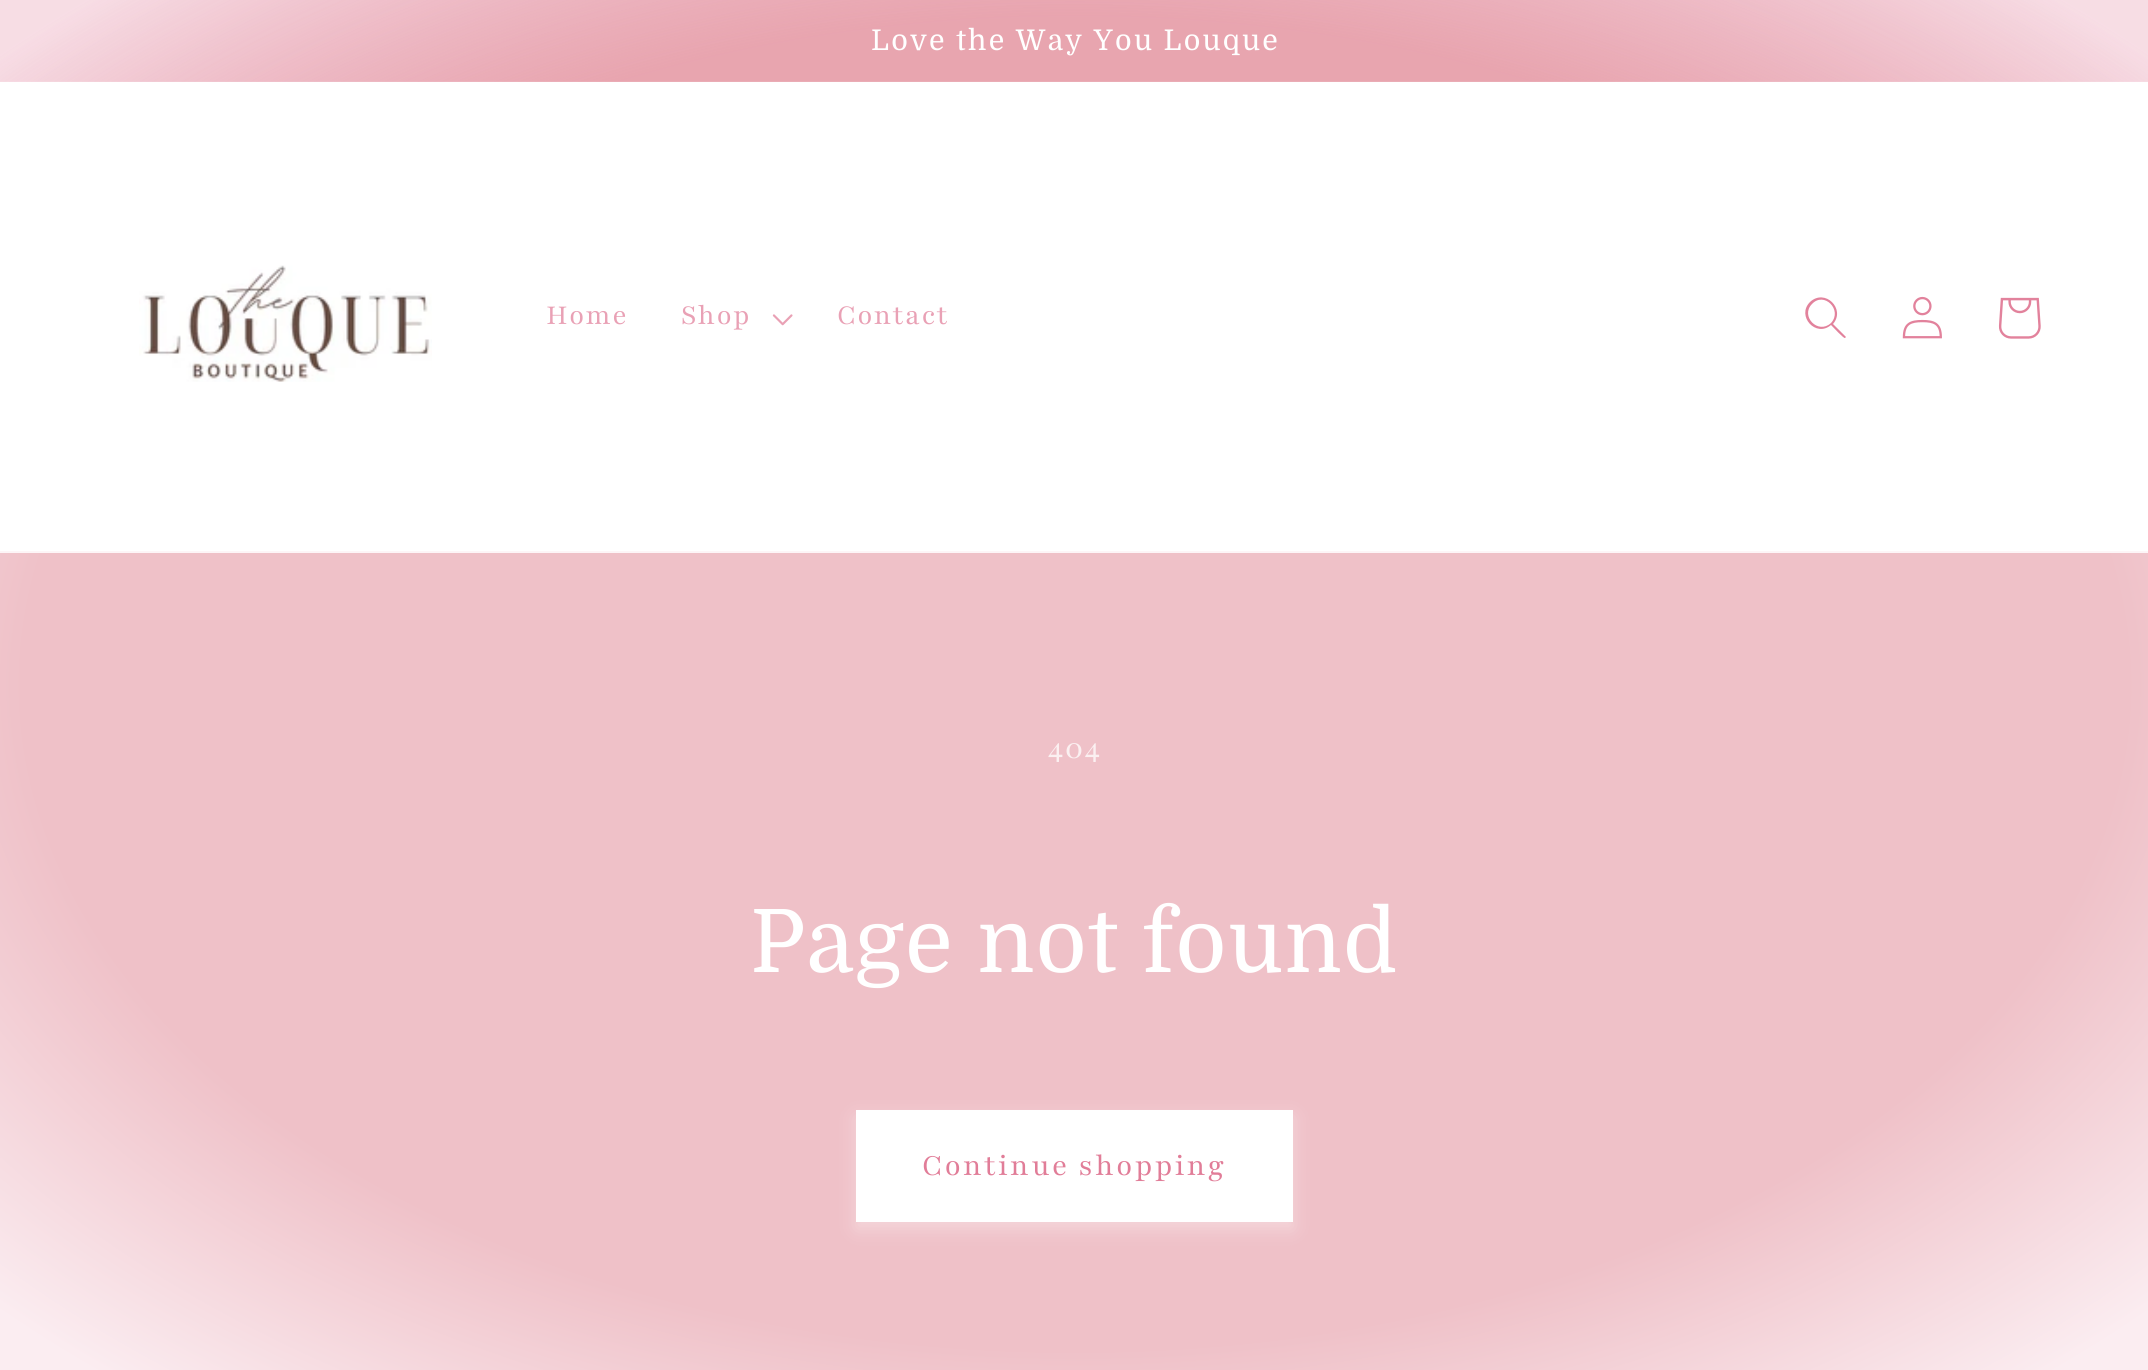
#include <cairo/cairo.h>
#include <math.h>
#include <stddef.h>


static void draw_spaced(cairo_t *cr, double x, double y, const char *s, double letter, double word) {
  cairo_move_to(cr, x, y);
  while (*s) {
    char ch[5] = {0};
    int n = 0;
    do ch[n++] = *s++; while ((*s & 0xC0) == 0x80);
    cairo_show_text(cr, ch);
    cairo_rel_move_to(cr, letter + word * (*ch == ' '), 0);
  }
}

static void rounded_rect(cairo_t *cr, double x, double y, double w, double h, double r) {
  cairo_new_sub_path(cr);
  cairo_arc(cr, x + w - r, y + h - r, r, 0, M_PI / 2);
  cairo_arc(cr, x + r, y + h - r, r, M_PI / 2, M_PI);
  cairo_arc(cr, x + r, y + r, r, M_PI, 1.5 * M_PI);
  cairo_arc(cr, x + w - r, y + r, r, 1.5 * M_PI, 2 * M_PI);
  cairo_close_path(cr);
}

static void draw_shadow(cairo_t *cr, double x, double y, double w, double h, double r, double blur, double alpha) {
  cairo_push_group_with_content(cr, CAIRO_CONTENT_ALPHA);
  cairo_set_operator(cr, CAIRO_OPERATOR_SOURCE);
  for (int i = 15; i >= -15 && fmin(w, h) + blur * i / 3 > 0; i -= 2) {
    double e = blur * i / 6;
    cairo_set_source_rgba(cr, 0, 0, 0, alpha * erfc((i - 1) / 8.5) / 2);
    rounded_rect(cr, x - e, y - e, w + 2 * e, h + 2 * e, fmax(0, fmin(r + e + blur * .6, fmin(w, h) / 2 + e)));
    cairo_fill(cr);
  }
  cairo_pattern_t *soft = cairo_pop_group(cr);
  cairo_mask(cr, soft);
  cairo_pattern_destroy(soft);
}

static void draw_image(cairo_t *cr, const char *path, double x, double y, double w, double h) {
  cairo_surface_t *image = cairo_image_surface_create_from_png(path);
  cairo_save(cr);
  cairo_set_source_surface(cr, image, x, y);
  cairo_rectangle(cr, x, y, w, h);
  cairo_fill(cr);
  cairo_restore(cr);
  cairo_surface_destroy(image);
}

static void draw(cairo_t *cr) {
  cairo_pattern_t *gradient;
  cairo_set_source_rgb(cr, 1, 1, 1);
  cairo_paint(cr);
  gradient = cairo_pattern_create_radial(0, 0, 0, 0, 0, 1);
  cairo_pattern_set_matrix(gradient, &(cairo_matrix_t){1.0 / 1520, 0, 0, 1.0 / 969, -1.0 * 1075 / 1520, -1.0 * 685 / 969});
  cairo_pattern_add_color_stop_rgba(gradient, 0.69, 239 / 255.0, 193 / 255.0, 200 / 255.0, 1);
  cairo_pattern_add_color_stop_rgba(gradient, 0.96, 251 / 255.0, 237 / 255.0, 241 / 255.0, 1);
  cairo_set_source(cr, gradient);
  cairo_pattern_destroy(gradient);
  cairo_rectangle(cr, 0, 0, 2148, 1370);
  cairo_fill(cr);
  gradient = cairo_pattern_create_radial(0, 0, 0, 0, 0, 1);
  cairo_pattern_set_matrix(gradient, &(cairo_matrix_t){1.0 / 1520, 0, 0, 1.0 / 969, -1.0 * 1075 / 1520, -1.0 * 685 / 969});
  cairo_pattern_add_color_stop_rgba(gradient, 0.69, 226 / 255.0, 141 / 255.0, 154 / 255.0, 0.55);
  cairo_pattern_add_color_stop_rgba(gradient, 0.96, 226 / 255.0, 137 / 255.0, 165 / 255.0, 0.16);
  cairo_set_source(cr, gradient);
  cairo_pattern_destroy(gradient);
  cairo_rectangle(cr, 0, 0, 2148, 82);
  cairo_fill(cr);
  cairo_set_source_rgba(cr, 1, 1, 1, 0.08);
  cairo_rectangle(cr, 0, 81, 2148, 1);
  cairo_fill(cr);
  cairo_set_source_rgb(cr, 1, 1, 1);
  cairo_rectangle(cr, 0, 82, 2148, 469);
  cairo_fill(cr);
  cairo_set_source_rgb(cr, 253 / 255.0, 245 / 255.0, 247 / 255.0);
  cairo_rectangle(cr, 0, 551, 2148, 2);
  cairo_fill(cr);
  draw_image(cr, "images/1.png", 139, 265, 293, 117);
  draw_image(cr, "images/2.png", 772, 314, 21, 12);
  cairo_set_source_rgb(cr, 226 / 255.0, 130 / 255.0, 156 / 255.0);
  cairo_set_fill_rule(cr, CAIRO_FILL_RULE_EVEN_ODD);
  cairo_new_path(cr);
  cairo_move_to(cr, 1831, 323);
  cairo_curve_to(cr, 1818, 335, 1800, 316, 1812, 304);
  cairo_curve_to(cr, 1824, 291, 1843, 310, 1831, 323);
  cairo_close_path(cr);
  cairo_move_to(cr, 1831, 325);
  cairo_curve_to(cr, 1816, 338, 1796, 316, 1810, 302);
  cairo_curve_to(cr, 1825, 288, 1846, 309, 1833, 324);
  cairo_line_to(cr, 1846, 337);
  cairo_line_to(cr, 1845, 338);
  cairo_curve_to(cr, 1844, 339, 1833, 327, 1831, 325);
  cairo_close_path(cr);
  cairo_fill(cr);
  draw_image(cr, "images/3.png", 1902, 296, 40, 43);
  draw_image(cr, "images/4.png", 1998, 297, 43, 42);
  cairo_set_source_rgb(cr, 1, 1, 1);
  draw_shadow(cr, 856, 1117, 437, 112, 0, 9, 0.35);
  cairo_set_source_rgb(cr, 1, 1, 1);
  cairo_rectangle(cr, 856, 1110, 437, 112);
  cairo_fill(cr);
  cairo_select_font_face(cr, "Domine", CAIRO_FONT_SLANT_NORMAL, CAIRO_FONT_WEIGHT_NORMAL);
  cairo_set_font_size(cr, 28.5);
  draw_spaced(cr, 871, 50, "Love the Way You Louque", 2.2, 0);
  cairo_select_font_face(cr, "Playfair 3", CAIRO_FONT_SLANT_NORMAL, CAIRO_FONT_WEIGHT_NORMAL);
  cairo_set_font_size(cr, 30.5);
  cairo_set_source_rgb(cr, 233 / 255.0, 161 / 255.0, 181 / 255.0);
  draw_spaced(cr, 546, 324, "Home", 1.25, 0);
  draw_spaced(cr, 681, 324, "Shop", 1.25, 0);
  draw_spaced(cr, 837, 324, "Contact", 1.25, 0);
  cairo_select_font_face(cr, "Playfair", CAIRO_FONT_SLANT_NORMAL, CAIRO_FONT_WEIGHT_NORMAL);
  cairo_set_font_size(cr, 35);
  cairo_set_source_rgb(cr, 251 / 255.0, 240 / 255.0, 241 / 255.0);
  draw_spaced(cr, 1048, 758, "404", 1.25, 0);
  cairo_select_font_face(cr, "Domine", CAIRO_FONT_SLANT_NORMAL, CAIRO_FONT_WEIGHT_NORMAL);
  cairo_set_font_size(cr, 87.5);
  cairo_set_source_rgb(cr, 1, 1, 1);
  draw_spaced(cr, 750, 972, "Page not found", 1.25, 0);
  cairo_select_font_face(cr, "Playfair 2", CAIRO_FONT_SLANT_NORMAL, CAIRO_FONT_WEIGHT_NORMAL);
  cairo_set_font_size(cr, 32.75);
  cairo_set_source_rgb(cr, 225 / 255.0, 125 / 255.0, 152 / 255.0);
  draw_spaced(cr, 922, 1175, "Continue shopping", 2.2, 0);
}

int main(void) {
  cairo_surface_t *surface = cairo_image_surface_create(CAIRO_FORMAT_RGB24, 2148, 1370);
  cairo_t *cr = cairo_create(surface);
  cairo_font_options_t *options = cairo_font_options_create();
  cairo_font_options_set_hint_metrics(options, CAIRO_HINT_METRICS_OFF);
  cairo_font_options_set_hint_style(options, CAIRO_HINT_STYLE_NONE);
  cairo_set_font_options(cr, options);
  cairo_set_miter_limit(cr, 4);
  draw(cr);
  cairo_surface_write_to_png(surface, "out.png");
  cairo_font_options_destroy(options);
  cairo_destroy(cr);
  cairo_surface_destroy(surface);
  return 0;
}
